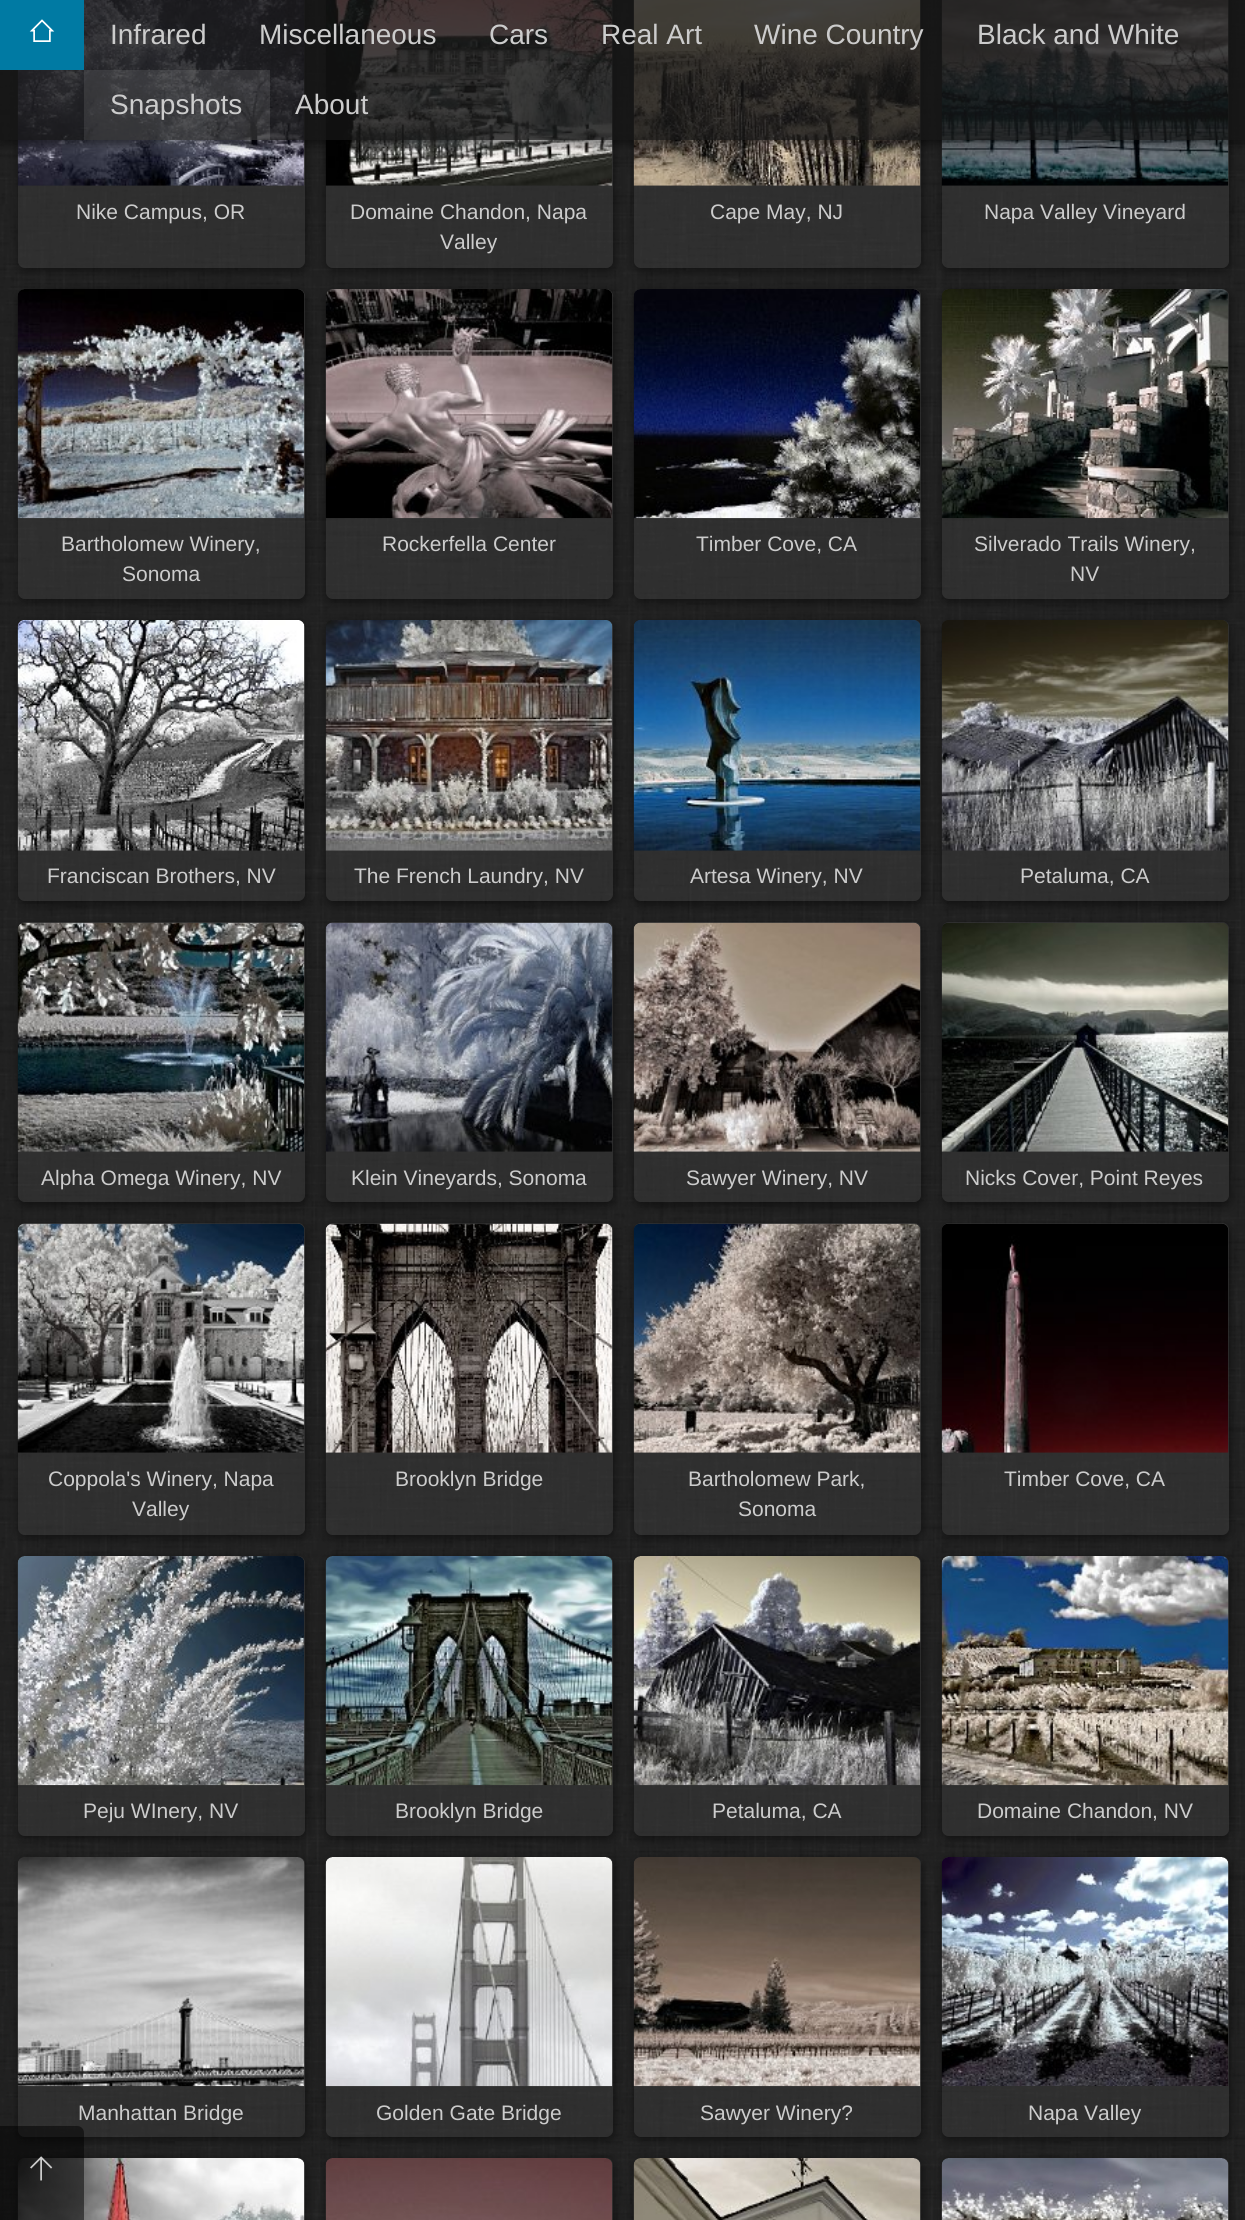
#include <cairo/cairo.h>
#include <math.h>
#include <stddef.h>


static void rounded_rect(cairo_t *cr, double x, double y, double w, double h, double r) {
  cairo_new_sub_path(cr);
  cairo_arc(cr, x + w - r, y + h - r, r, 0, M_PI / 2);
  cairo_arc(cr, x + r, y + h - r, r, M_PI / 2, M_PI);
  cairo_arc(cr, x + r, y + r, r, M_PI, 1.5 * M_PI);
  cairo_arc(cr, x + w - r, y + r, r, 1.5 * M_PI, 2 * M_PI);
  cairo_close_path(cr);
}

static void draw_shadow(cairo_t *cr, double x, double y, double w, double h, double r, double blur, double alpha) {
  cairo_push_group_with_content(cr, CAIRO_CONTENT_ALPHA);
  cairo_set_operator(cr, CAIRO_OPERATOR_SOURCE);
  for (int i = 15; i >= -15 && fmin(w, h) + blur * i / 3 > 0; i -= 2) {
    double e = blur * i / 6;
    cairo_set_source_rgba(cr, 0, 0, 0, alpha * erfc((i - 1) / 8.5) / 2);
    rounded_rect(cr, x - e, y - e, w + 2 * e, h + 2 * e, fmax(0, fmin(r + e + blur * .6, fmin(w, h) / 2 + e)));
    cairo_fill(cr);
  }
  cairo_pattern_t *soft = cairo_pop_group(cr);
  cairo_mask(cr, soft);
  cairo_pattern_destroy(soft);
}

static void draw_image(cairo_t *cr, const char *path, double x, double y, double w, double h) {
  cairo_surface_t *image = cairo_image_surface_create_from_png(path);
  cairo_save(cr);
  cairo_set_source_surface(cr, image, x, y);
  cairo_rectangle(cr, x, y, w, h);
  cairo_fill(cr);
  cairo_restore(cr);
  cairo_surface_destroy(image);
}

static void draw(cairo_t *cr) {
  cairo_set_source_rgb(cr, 34 / 255.0, 34 / 255.0, 34 / 255.0);
  cairo_paint(cr);
  draw_image(cr, "images/1.png", 0, 0, 1245, 2220);
  cairo_save(cr);
  cairo_set_fill_rule(cr, CAIRO_FILL_RULE_EVEN_ODD);
  cairo_new_path(cr);
  cairo_move_to(cr, 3, 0);
  cairo_line_to(cr, 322, 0);
  cairo_line_to(cr, 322, 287);
  cairo_line_to(cr, 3, 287);
  cairo_close_path(cr);
  cairo_move_to(cr, 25, -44);
  cairo_line_to(cr, 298, -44);
  cairo_curve_to(cr, 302, -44, 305, -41, 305, -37);
  cairo_line_to(cr, 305, 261);
  cairo_curve_to(cr, 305, 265, 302, 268, 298, 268);
  cairo_line_to(cr, 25, 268);
  cairo_curve_to(cr, 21, 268, 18, 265, 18, 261);
  cairo_line_to(cr, 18, -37);
  cairo_curve_to(cr, 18, -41, 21, -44, 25, -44);
  cairo_close_path(cr);
  cairo_clip(cr);
  cairo_set_source_rgb(cr, 0, 0, 0);
  draw_shadow(cr, 19, -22, 287, 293, 7, 5, 0.5);
  cairo_restore(cr);
  cairo_set_source_rgba(cr, 68 / 255.0, 68 / 255.0, 68 / 255.0, 0.4);
  rounded_rect(cr, 18, -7, 287, 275, 7);
  cairo_fill(cr);
  draw_image(cr, "images/3.png", 17, 0, 288, 186);
  cairo_save(cr);
  cairo_set_fill_rule(cr, CAIRO_FILL_RULE_EVEN_ODD);
  cairo_new_path(cr);
  cairo_move_to(cr, 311, 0);
  cairo_line_to(cr, 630, 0);
  cairo_line_to(cr, 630, 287);
  cairo_line_to(cr, 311, 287);
  cairo_close_path(cr);
  cairo_move_to(cr, 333, -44);
  cairo_line_to(cr, 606, -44);
  cairo_curve_to(cr, 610, -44, 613, -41, 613, -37);
  cairo_line_to(cr, 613, 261);
  cairo_curve_to(cr, 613, 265, 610, 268, 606, 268);
  cairo_line_to(cr, 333, 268);
  cairo_curve_to(cr, 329, 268, 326, 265, 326, 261);
  cairo_line_to(cr, 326, -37);
  cairo_curve_to(cr, 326, -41, 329, -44, 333, -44);
  cairo_close_path(cr);
  cairo_clip(cr);
  cairo_set_source_rgb(cr, 0, 0, 0);
  draw_shadow(cr, 327, -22, 287, 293, 7, 5, 0.5);
  cairo_restore(cr);
  rounded_rect(cr, 326, -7, 287, 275, 7);
  cairo_fill(cr);
  draw_image(cr, "images/4.png", 325, 0, 288, 186);
  cairo_save(cr);
  cairo_set_fill_rule(cr, CAIRO_FILL_RULE_EVEN_ODD);
  cairo_new_path(cr);
  cairo_move_to(cr, 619, 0);
  cairo_line_to(cr, 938, 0);
  cairo_line_to(cr, 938, 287);
  cairo_line_to(cr, 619, 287);
  cairo_close_path(cr);
  cairo_move_to(cr, 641, -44);
  cairo_line_to(cr, 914, -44);
  cairo_curve_to(cr, 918, -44, 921, -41, 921, -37);
  cairo_line_to(cr, 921, 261);
  cairo_curve_to(cr, 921, 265, 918, 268, 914, 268);
  cairo_line_to(cr, 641, 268);
  cairo_curve_to(cr, 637, 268, 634, 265, 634, 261);
  cairo_line_to(cr, 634, -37);
  cairo_curve_to(cr, 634, -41, 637, -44, 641, -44);
  cairo_close_path(cr);
  cairo_clip(cr);
  cairo_set_source_rgb(cr, 0, 0, 0);
  draw_shadow(cr, 635, -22, 287, 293, 7, 5, 0.5);
  cairo_restore(cr);
  rounded_rect(cr, 634, -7, 287, 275, 7);
  cairo_fill(cr);
  draw_image(cr, "images/5.png", 633, 0, 288, 186);
  cairo_save(cr);
  cairo_set_fill_rule(cr, CAIRO_FILL_RULE_EVEN_ODD);
  cairo_new_path(cr);
  cairo_move_to(cr, 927, 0);
  cairo_line_to(cr, 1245, 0);
  cairo_line_to(cr, 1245, 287);
  cairo_line_to(cr, 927, 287);
  cairo_close_path(cr);
  cairo_move_to(cr, 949, -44);
  cairo_line_to(cr, 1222, -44);
  cairo_curve_to(cr, 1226, -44, 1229, -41, 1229, -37);
  cairo_line_to(cr, 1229, 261);
  cairo_curve_to(cr, 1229, 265, 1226, 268, 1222, 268);
  cairo_line_to(cr, 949, 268);
  cairo_curve_to(cr, 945, 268, 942, 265, 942, 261);
  cairo_line_to(cr, 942, -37);
  cairo_curve_to(cr, 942, -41, 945, -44, 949, -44);
  cairo_close_path(cr);
  cairo_clip(cr);
  cairo_set_source_rgb(cr, 0, 0, 0);
  draw_shadow(cr, 943, -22, 287, 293, 7, 5, 0.5);
  cairo_restore(cr);
  rounded_rect(cr, 942, -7, 287, 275, 7);
  cairo_fill(cr);
  draw_image(cr, "images/6.png", 941, 0, 288, 186);
  cairo_save(cr);
  cairo_rectangle(cr, 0, 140, 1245, 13);
  cairo_clip(cr);
  cairo_set_source_rgb(cr, 0, 0, 0);
  draw_shadow(cr, 2, 4, 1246, 140, 0, 5, 0.5);
  cairo_restore(cr);
  cairo_set_source_rgba(cr, 20 / 255.0, 20 / 255.0, 20 / 255.0, 0.8);
  cairo_rectangle(cr, 0, 0, 1245, 140);
  cairo_fill(cr);
  cairo_set_source_rgb(cr, 0, 122 / 255.0, 163 / 255.0);
  cairo_rectangle(cr, 0, 0, 84, 70);
  cairo_fill(cr);
  draw_image(cr, "images/2.png", 29, 19, 26, 23);
  cairo_set_source_rgba(cr, 1, 1, 1, 0.1);
  cairo_rectangle(cr, 84, 70, 186, 70);
  cairo_fill(cr);
  cairo_save(cr);
  cairo_set_fill_rule(cr, CAIRO_FILL_RULE_EVEN_ODD);
  cairo_new_path(cr);
  cairo_move_to(cr, 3, 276);
  cairo_line_to(cr, 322, 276);
  cairo_line_to(cr, 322, 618);
  cairo_line_to(cr, 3, 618);
  cairo_close_path(cr);
  cairo_move_to(cr, 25, 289);
  cairo_line_to(cr, 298, 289);
  cairo_curve_to(cr, 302, 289, 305, 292, 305, 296);
  cairo_line_to(cr, 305, 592);
  cairo_curve_to(cr, 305, 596, 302, 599, 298, 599);
  cairo_line_to(cr, 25, 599);
  cairo_curve_to(cr, 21, 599, 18, 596, 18, 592);
  cairo_line_to(cr, 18, 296);
  cairo_curve_to(cr, 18, 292, 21, 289, 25, 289);
  cairo_close_path(cr);
  cairo_clip(cr);
  cairo_set_source_rgb(cr, 0, 0, 0);
  draw_shadow(cr, 19, 292, 287, 310, 7, 5, 0.5);
  cairo_restore(cr);
  cairo_set_source_rgba(cr, 68 / 255.0, 68 / 255.0, 68 / 255.0, 0.4);
  rounded_rect(cr, 18, 289, 287, 310, 7);
  cairo_fill(cr);
  draw_image(cr, "images/7.png", 17, 289, 288, 230);
  cairo_save(cr);
  cairo_set_fill_rule(cr, CAIRO_FILL_RULE_EVEN_ODD);
  cairo_new_path(cr);
  cairo_move_to(cr, 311, 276);
  cairo_line_to(cr, 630, 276);
  cairo_line_to(cr, 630, 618);
  cairo_line_to(cr, 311, 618);
  cairo_close_path(cr);
  cairo_move_to(cr, 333, 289);
  cairo_line_to(cr, 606, 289);
  cairo_curve_to(cr, 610, 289, 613, 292, 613, 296);
  cairo_line_to(cr, 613, 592);
  cairo_curve_to(cr, 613, 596, 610, 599, 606, 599);
  cairo_line_to(cr, 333, 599);
  cairo_curve_to(cr, 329, 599, 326, 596, 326, 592);
  cairo_line_to(cr, 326, 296);
  cairo_curve_to(cr, 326, 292, 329, 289, 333, 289);
  cairo_close_path(cr);
  cairo_clip(cr);
  cairo_set_source_rgb(cr, 0, 0, 0);
  draw_shadow(cr, 327, 292, 287, 310, 7, 5, 0.5);
  cairo_restore(cr);
  rounded_rect(cr, 326, 289, 287, 310, 7);
  cairo_fill(cr);
  draw_image(cr, "images/8.png", 325, 289, 288, 230);
  cairo_save(cr);
  cairo_set_fill_rule(cr, CAIRO_FILL_RULE_EVEN_ODD);
  cairo_new_path(cr);
  cairo_move_to(cr, 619, 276);
  cairo_line_to(cr, 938, 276);
  cairo_line_to(cr, 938, 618);
  cairo_line_to(cr, 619, 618);
  cairo_close_path(cr);
  cairo_move_to(cr, 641, 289);
  cairo_line_to(cr, 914, 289);
  cairo_curve_to(cr, 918, 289, 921, 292, 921, 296);
  cairo_line_to(cr, 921, 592);
  cairo_curve_to(cr, 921, 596, 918, 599, 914, 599);
  cairo_line_to(cr, 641, 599);
  cairo_curve_to(cr, 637, 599, 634, 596, 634, 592);
  cairo_line_to(cr, 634, 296);
  cairo_curve_to(cr, 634, 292, 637, 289, 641, 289);
  cairo_close_path(cr);
  cairo_clip(cr);
  cairo_set_source_rgb(cr, 0, 0, 0);
  draw_shadow(cr, 635, 292, 287, 310, 7, 5, 0.5);
  cairo_restore(cr);
  rounded_rect(cr, 634, 289, 287, 310, 7);
  cairo_fill(cr);
  draw_image(cr, "images/9.png", 633, 289, 288, 230);
  cairo_save(cr);
  cairo_set_fill_rule(cr, CAIRO_FILL_RULE_EVEN_ODD);
  cairo_new_path(cr);
  cairo_move_to(cr, 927, 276);
  cairo_line_to(cr, 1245, 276);
  cairo_line_to(cr, 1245, 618);
  cairo_line_to(cr, 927, 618);
  cairo_close_path(cr);
  cairo_move_to(cr, 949, 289);
  cairo_line_to(cr, 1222, 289);
  cairo_curve_to(cr, 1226, 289, 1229, 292, 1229, 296);
  cairo_line_to(cr, 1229, 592);
  cairo_curve_to(cr, 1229, 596, 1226, 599, 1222, 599);
  cairo_line_to(cr, 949, 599);
  cairo_curve_to(cr, 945, 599, 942, 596, 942, 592);
  cairo_line_to(cr, 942, 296);
  cairo_curve_to(cr, 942, 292, 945, 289, 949, 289);
  cairo_close_path(cr);
  cairo_clip(cr);
  cairo_set_source_rgb(cr, 0, 0, 0);
  draw_shadow(cr, 943, 292, 287, 310, 7, 5, 0.5);
  cairo_restore(cr);
  rounded_rect(cr, 942, 289, 287, 310, 7);
  cairo_fill(cr);
  draw_image(cr, "images/10.png", 941, 289, 288, 230);
  cairo_save(cr);
  cairo_set_fill_rule(cr, CAIRO_FILL_RULE_EVEN_ODD);
  cairo_new_path(cr);
  cairo_move_to(cr, 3, 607);
  cairo_line_to(cr, 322, 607);
  cairo_line_to(cr, 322, 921);
  cairo_line_to(cr, 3, 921);
  cairo_close_path(cr);
  cairo_move_to(cr, 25, 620);
  cairo_line_to(cr, 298, 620);
  cairo_curve_to(cr, 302, 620, 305, 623, 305, 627);
  cairo_line_to(cr, 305, 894);
  cairo_curve_to(cr, 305, 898, 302, 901, 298, 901);
  cairo_line_to(cr, 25, 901);
  cairo_curve_to(cr, 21, 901, 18, 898, 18, 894);
  cairo_line_to(cr, 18, 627);
  cairo_curve_to(cr, 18, 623, 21, 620, 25, 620);
  cairo_close_path(cr);
  cairo_clip(cr);
  cairo_set_source_rgb(cr, 0, 0, 0);
  draw_shadow(cr, 19, 623, 287, 282, 7, 5, 0.5);
  cairo_restore(cr);
  rounded_rect(cr, 18, 620, 287, 281, 7);
  cairo_fill(cr);
  draw_image(cr, "images/11.png", 17, 620, 288, 231);
  cairo_save(cr);
  cairo_set_fill_rule(cr, CAIRO_FILL_RULE_EVEN_ODD);
  cairo_new_path(cr);
  cairo_move_to(cr, 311, 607);
  cairo_line_to(cr, 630, 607);
  cairo_line_to(cr, 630, 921);
  cairo_line_to(cr, 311, 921);
  cairo_close_path(cr);
  cairo_move_to(cr, 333, 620);
  cairo_line_to(cr, 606, 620);
  cairo_curve_to(cr, 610, 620, 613, 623, 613, 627);
  cairo_line_to(cr, 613, 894);
  cairo_curve_to(cr, 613, 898, 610, 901, 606, 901);
  cairo_line_to(cr, 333, 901);
  cairo_curve_to(cr, 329, 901, 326, 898, 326, 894);
  cairo_line_to(cr, 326, 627);
  cairo_curve_to(cr, 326, 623, 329, 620, 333, 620);
  cairo_close_path(cr);
  cairo_clip(cr);
  cairo_set_source_rgb(cr, 0, 0, 0);
  draw_shadow(cr, 327, 623, 287, 282, 7, 5, 0.5);
  cairo_restore(cr);
  rounded_rect(cr, 326, 620, 287, 281, 7);
  cairo_fill(cr);
  draw_image(cr, "images/12.png", 325, 620, 288, 231);
  cairo_save(cr);
  cairo_set_fill_rule(cr, CAIRO_FILL_RULE_EVEN_ODD);
  cairo_new_path(cr);
  cairo_move_to(cr, 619, 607);
  cairo_line_to(cr, 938, 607);
  cairo_line_to(cr, 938, 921);
  cairo_line_to(cr, 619, 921);
  cairo_close_path(cr);
  cairo_move_to(cr, 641, 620);
  cairo_line_to(cr, 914, 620);
  cairo_curve_to(cr, 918, 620, 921, 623, 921, 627);
  cairo_line_to(cr, 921, 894);
  cairo_curve_to(cr, 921, 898, 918, 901, 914, 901);
  cairo_line_to(cr, 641, 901);
  cairo_curve_to(cr, 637, 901, 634, 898, 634, 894);
  cairo_line_to(cr, 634, 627);
  cairo_curve_to(cr, 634, 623, 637, 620, 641, 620);
  cairo_close_path(cr);
  cairo_clip(cr);
  cairo_set_source_rgb(cr, 0, 0, 0);
  draw_shadow(cr, 635, 623, 287, 282, 7, 5, 0.5);
  cairo_restore(cr);
  rounded_rect(cr, 634, 620, 287, 281, 7);
  cairo_fill(cr);
  draw_image(cr, "images/13.png", 633, 620, 288, 231);
  cairo_save(cr);
  cairo_set_fill_rule(cr, CAIRO_FILL_RULE_EVEN_ODD);
  cairo_new_path(cr);
  cairo_move_to(cr, 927, 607);
  cairo_line_to(cr, 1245, 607);
  cairo_line_to(cr, 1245, 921);
  cairo_line_to(cr, 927, 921);
  cairo_close_path(cr);
  cairo_move_to(cr, 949, 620);
  cairo_line_to(cr, 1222, 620);
  cairo_curve_to(cr, 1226, 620, 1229, 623, 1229, 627);
  cairo_line_to(cr, 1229, 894);
  cairo_curve_to(cr, 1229, 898, 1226, 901, 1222, 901);
  cairo_line_to(cr, 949, 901);
  cairo_curve_to(cr, 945, 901, 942, 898, 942, 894);
  cairo_line_to(cr, 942, 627);
  cairo_curve_to(cr, 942, 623, 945, 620, 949, 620);
  cairo_close_path(cr);
  cairo_clip(cr);
  cairo_set_source_rgb(cr, 0, 0, 0);
  draw_shadow(cr, 943, 623, 287, 282, 7, 5, 0.5);
  cairo_restore(cr);
  rounded_rect(cr, 942, 620, 287, 281, 7);
  cairo_fill(cr);
  draw_image(cr, "images/14.png", 941, 620, 288, 231);
  cairo_save(cr);
  cairo_set_fill_rule(cr, CAIRO_FILL_RULE_EVEN_ODD);
  cairo_new_path(cr);
  cairo_move_to(cr, 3, 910);
  cairo_line_to(cr, 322, 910);
  cairo_line_to(cr, 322, 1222);
  cairo_line_to(cr, 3, 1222);
  cairo_close_path(cr);
  cairo_move_to(cr, 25, 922);
  cairo_line_to(cr, 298, 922);
  cairo_curve_to(cr, 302, 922, 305, 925, 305, 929);
  cairo_line_to(cr, 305, 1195);
  cairo_curve_to(cr, 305, 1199, 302, 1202, 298, 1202);
  cairo_line_to(cr, 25, 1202);
  cairo_curve_to(cr, 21, 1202, 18, 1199, 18, 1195);
  cairo_line_to(cr, 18, 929);
  cairo_curve_to(cr, 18, 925, 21, 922, 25, 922);
  cairo_close_path(cr);
  cairo_clip(cr);
  cairo_set_source_rgb(cr, 0, 0, 0);
  draw_shadow(cr, 19, 926, 287, 280, 7, 5, 0.5);
  cairo_restore(cr);
  rounded_rect(cr, 18, 922, 287, 280, 7);
  cairo_fill(cr);
  draw_image(cr, "images/15.png", 17, 922, 288, 230);
  cairo_save(cr);
  cairo_set_fill_rule(cr, CAIRO_FILL_RULE_EVEN_ODD);
  cairo_new_path(cr);
  cairo_move_to(cr, 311, 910);
  cairo_line_to(cr, 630, 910);
  cairo_line_to(cr, 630, 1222);
  cairo_line_to(cr, 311, 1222);
  cairo_close_path(cr);
  cairo_move_to(cr, 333, 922);
  cairo_line_to(cr, 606, 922);
  cairo_curve_to(cr, 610, 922, 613, 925, 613, 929);
  cairo_line_to(cr, 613, 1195);
  cairo_curve_to(cr, 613, 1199, 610, 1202, 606, 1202);
  cairo_line_to(cr, 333, 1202);
  cairo_curve_to(cr, 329, 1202, 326, 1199, 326, 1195);
  cairo_line_to(cr, 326, 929);
  cairo_curve_to(cr, 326, 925, 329, 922, 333, 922);
  cairo_close_path(cr);
  cairo_clip(cr);
  cairo_set_source_rgb(cr, 0, 0, 0);
  draw_shadow(cr, 327, 926, 287, 280, 7, 5, 0.5);
  cairo_restore(cr);
  rounded_rect(cr, 326, 922, 287, 280, 7);
  cairo_fill(cr);
  draw_image(cr, "images/16.png", 325, 922, 288, 230);
  cairo_save(cr);
  cairo_set_fill_rule(cr, CAIRO_FILL_RULE_EVEN_ODD);
  cairo_new_path(cr);
  cairo_move_to(cr, 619, 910);
  cairo_line_to(cr, 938, 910);
  cairo_line_to(cr, 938, 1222);
  cairo_line_to(cr, 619, 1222);
  cairo_close_path(cr);
  cairo_move_to(cr, 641, 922);
  cairo_line_to(cr, 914, 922);
  cairo_curve_to(cr, 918, 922, 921, 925, 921, 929);
  cairo_line_to(cr, 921, 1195);
  cairo_curve_to(cr, 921, 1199, 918, 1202, 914, 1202);
  cairo_line_to(cr, 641, 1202);
  cairo_curve_to(cr, 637, 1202, 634, 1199, 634, 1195);
  cairo_line_to(cr, 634, 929);
  cairo_curve_to(cr, 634, 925, 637, 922, 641, 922);
  cairo_close_path(cr);
  cairo_clip(cr);
  cairo_set_source_rgb(cr, 0, 0, 0);
  draw_shadow(cr, 635, 926, 287, 280, 7, 5, 0.5);
  cairo_restore(cr);
  rounded_rect(cr, 634, 922, 287, 280, 7);
  cairo_fill(cr);
  draw_image(cr, "images/17.png", 633, 922, 288, 230);
  cairo_save(cr);
  cairo_set_fill_rule(cr, CAIRO_FILL_RULE_EVEN_ODD);
  cairo_new_path(cr);
  cairo_move_to(cr, 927, 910);
  cairo_line_to(cr, 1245, 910);
  cairo_line_to(cr, 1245, 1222);
  cairo_line_to(cr, 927, 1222);
  cairo_close_path(cr);
  cairo_move_to(cr, 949, 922);
  cairo_line_to(cr, 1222, 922);
  cairo_curve_to(cr, 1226, 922, 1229, 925, 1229, 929);
  cairo_line_to(cr, 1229, 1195);
  cairo_curve_to(cr, 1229, 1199, 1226, 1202, 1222, 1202);
  cairo_line_to(cr, 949, 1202);
  cairo_curve_to(cr, 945, 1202, 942, 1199, 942, 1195);
  cairo_line_to(cr, 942, 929);
  cairo_curve_to(cr, 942, 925, 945, 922, 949, 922);
  cairo_close_path(cr);
  cairo_clip(cr);
  cairo_set_source_rgb(cr, 0, 0, 0);
  draw_shadow(cr, 943, 926, 287, 280, 7, 5, 0.5);
  cairo_restore(cr);
  rounded_rect(cr, 942, 922, 287, 280, 7);
  cairo_fill(cr);
  draw_image(cr, "images/18.png", 941, 923, 288, 229);
  cairo_save(cr);
  cairo_set_fill_rule(cr, CAIRO_FILL_RULE_EVEN_ODD);
  cairo_new_path(cr);
  cairo_move_to(cr, 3, 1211);
  cairo_line_to(cr, 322, 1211);
  cairo_line_to(cr, 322, 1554);
  cairo_line_to(cr, 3, 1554);
  cairo_close_path(cr);
  cairo_move_to(cr, 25, 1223);
  cairo_line_to(cr, 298, 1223);
  cairo_curve_to(cr, 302, 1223, 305, 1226, 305, 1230);
  cairo_line_to(cr, 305, 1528);
  cairo_curve_to(cr, 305, 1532, 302, 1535, 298, 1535);
  cairo_line_to(cr, 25, 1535);
  cairo_curve_to(cr, 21, 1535, 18, 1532, 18, 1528);
  cairo_line_to(cr, 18, 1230);
  cairo_curve_to(cr, 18, 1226, 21, 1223, 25, 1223);
  cairo_close_path(cr);
  cairo_clip(cr);
  cairo_set_source_rgb(cr, 0, 0, 0);
  draw_shadow(cr, 19, 1227, 287, 311, 7, 5, 0.5);
  cairo_restore(cr);
  rounded_rect(cr, 18, 1223, 287, 312, 7);
  cairo_fill(cr);
  draw_image(cr, "images/19.png", 17, 1223, 288, 230);
  cairo_save(cr);
  cairo_set_fill_rule(cr, CAIRO_FILL_RULE_EVEN_ODD);
  cairo_new_path(cr);
  cairo_move_to(cr, 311, 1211);
  cairo_line_to(cr, 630, 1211);
  cairo_line_to(cr, 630, 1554);
  cairo_line_to(cr, 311, 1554);
  cairo_close_path(cr);
  cairo_move_to(cr, 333, 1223);
  cairo_line_to(cr, 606, 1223);
  cairo_curve_to(cr, 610, 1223, 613, 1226, 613, 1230);
  cairo_line_to(cr, 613, 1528);
  cairo_curve_to(cr, 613, 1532, 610, 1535, 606, 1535);
  cairo_line_to(cr, 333, 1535);
  cairo_curve_to(cr, 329, 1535, 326, 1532, 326, 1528);
  cairo_line_to(cr, 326, 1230);
  cairo_curve_to(cr, 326, 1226, 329, 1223, 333, 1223);
  cairo_close_path(cr);
  cairo_clip(cr);
  cairo_set_source_rgb(cr, 0, 0, 0);
  draw_shadow(cr, 327, 1227, 287, 311, 7, 5, 0.5);
  cairo_restore(cr);
  rounded_rect(cr, 326, 1223, 287, 312, 7);
  cairo_fill(cr);
  draw_image(cr, "images/20.png", 325, 1223, 288, 230);
  cairo_save(cr);
  cairo_set_fill_rule(cr, CAIRO_FILL_RULE_EVEN_ODD);
  cairo_new_path(cr);
  cairo_move_to(cr, 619, 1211);
  cairo_line_to(cr, 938, 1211);
  cairo_line_to(cr, 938, 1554);
  cairo_line_to(cr, 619, 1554);
  cairo_close_path(cr);
  cairo_move_to(cr, 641, 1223);
  cairo_line_to(cr, 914, 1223);
  cairo_curve_to(cr, 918, 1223, 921, 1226, 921, 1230);
  cairo_line_to(cr, 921, 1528);
  cairo_curve_to(cr, 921, 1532, 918, 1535, 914, 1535);
  cairo_line_to(cr, 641, 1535);
  cairo_curve_to(cr, 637, 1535, 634, 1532, 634, 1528);
  cairo_line_to(cr, 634, 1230);
  cairo_curve_to(cr, 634, 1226, 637, 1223, 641, 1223);
  cairo_close_path(cr);
  cairo_clip(cr);
  cairo_set_source_rgb(cr, 0, 0, 0);
  draw_shadow(cr, 635, 1227, 287, 311, 7, 5, 0.5);
  cairo_restore(cr);
  rounded_rect(cr, 634, 1223, 287, 312, 7);
  cairo_fill(cr);
  draw_image(cr, "images/21.png", 633, 1223, 288, 230);
  cairo_save(cr);
  cairo_set_fill_rule(cr, CAIRO_FILL_RULE_EVEN_ODD);
  cairo_new_path(cr);
  cairo_move_to(cr, 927, 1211);
  cairo_line_to(cr, 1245, 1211);
  cairo_line_to(cr, 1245, 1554);
  cairo_line_to(cr, 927, 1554);
  cairo_close_path(cr);
  cairo_move_to(cr, 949, 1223);
  cairo_line_to(cr, 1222, 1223);
  cairo_curve_to(cr, 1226, 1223, 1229, 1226, 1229, 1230);
  cairo_line_to(cr, 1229, 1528);
  cairo_curve_to(cr, 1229, 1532, 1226, 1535, 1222, 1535);
  cairo_line_to(cr, 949, 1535);
  cairo_curve_to(cr, 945, 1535, 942, 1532, 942, 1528);
  cairo_line_to(cr, 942, 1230);
  cairo_curve_to(cr, 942, 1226, 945, 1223, 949, 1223);
  cairo_close_path(cr);
  cairo_clip(cr);
  cairo_set_source_rgb(cr, 0, 0, 0);
  draw_shadow(cr, 943, 1227, 287, 311, 7, 5, 0.5);
  cairo_restore(cr);
  rounded_rect(cr, 942, 1223, 287, 312, 7);
  cairo_fill(cr);
  draw_image(cr, "images/22.png", 941, 1223, 288, 230);
  cairo_save(cr);
  cairo_set_fill_rule(cr, CAIRO_FILL_RULE_EVEN_ODD);
  cairo_new_path(cr);
  cairo_move_to(cr, 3, 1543);
  cairo_line_to(cr, 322, 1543);
  cairo_line_to(cr, 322, 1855);
  cairo_line_to(cr, 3, 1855);
  cairo_close_path(cr);
  cairo_move_to(cr, 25, 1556);
  cairo_line_to(cr, 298, 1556);
  cairo_curve_to(cr, 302, 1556, 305, 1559, 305, 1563);
  cairo_line_to(cr, 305, 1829);
  cairo_curve_to(cr, 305, 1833, 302, 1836, 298, 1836);
  cairo_line_to(cr, 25, 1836);
  cairo_curve_to(cr, 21, 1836, 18, 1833, 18, 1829);
  cairo_line_to(cr, 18, 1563);
  cairo_curve_to(cr, 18, 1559, 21, 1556, 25, 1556);
  cairo_close_path(cr);
  cairo_clip(cr);
  cairo_set_source_rgb(cr, 0, 0, 0);
  draw_shadow(cr, 19, 1559, 287, 280, 7, 5, 0.5);
  cairo_restore(cr);
  rounded_rect(cr, 18, 1556, 287, 280, 7);
  cairo_fill(cr);
  draw_image(cr, "images/23.png", 17, 1556, 288, 230);
  cairo_save(cr);
  cairo_set_fill_rule(cr, CAIRO_FILL_RULE_EVEN_ODD);
  cairo_new_path(cr);
  cairo_move_to(cr, 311, 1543);
  cairo_line_to(cr, 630, 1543);
  cairo_line_to(cr, 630, 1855);
  cairo_line_to(cr, 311, 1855);
  cairo_close_path(cr);
  cairo_move_to(cr, 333, 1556);
  cairo_line_to(cr, 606, 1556);
  cairo_curve_to(cr, 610, 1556, 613, 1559, 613, 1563);
  cairo_line_to(cr, 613, 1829);
  cairo_curve_to(cr, 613, 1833, 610, 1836, 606, 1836);
  cairo_line_to(cr, 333, 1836);
  cairo_curve_to(cr, 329, 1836, 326, 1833, 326, 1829);
  cairo_line_to(cr, 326, 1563);
  cairo_curve_to(cr, 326, 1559, 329, 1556, 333, 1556);
  cairo_close_path(cr);
  cairo_clip(cr);
  cairo_set_source_rgb(cr, 0, 0, 0);
  draw_shadow(cr, 327, 1559, 287, 280, 7, 5, 0.5);
  cairo_restore(cr);
  rounded_rect(cr, 326, 1556, 287, 280, 7);
  cairo_fill(cr);
  draw_image(cr, "images/24.png", 325, 1556, 288, 230);
  cairo_save(cr);
  cairo_set_fill_rule(cr, CAIRO_FILL_RULE_EVEN_ODD);
  cairo_new_path(cr);
  cairo_move_to(cr, 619, 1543);
  cairo_line_to(cr, 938, 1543);
  cairo_line_to(cr, 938, 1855);
  cairo_line_to(cr, 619, 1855);
  cairo_close_path(cr);
  cairo_move_to(cr, 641, 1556);
  cairo_line_to(cr, 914, 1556);
  cairo_curve_to(cr, 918, 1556, 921, 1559, 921, 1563);
  cairo_line_to(cr, 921, 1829);
  cairo_curve_to(cr, 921, 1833, 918, 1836, 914, 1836);
  cairo_line_to(cr, 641, 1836);
  cairo_curve_to(cr, 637, 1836, 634, 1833, 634, 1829);
  cairo_line_to(cr, 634, 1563);
  cairo_curve_to(cr, 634, 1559, 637, 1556, 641, 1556);
  cairo_close_path(cr);
  cairo_clip(cr);
  cairo_set_source_rgb(cr, 0, 0, 0);
  draw_shadow(cr, 635, 1559, 287, 280, 7, 5, 0.5);
  cairo_restore(cr);
  rounded_rect(cr, 634, 1556, 287, 280, 7);
  cairo_fill(cr);
  draw_image(cr, "images/25.png", 633, 1556, 288, 230);
  cairo_save(cr);
  cairo_set_fill_rule(cr, CAIRO_FILL_RULE_EVEN_ODD);
  cairo_new_path(cr);
  cairo_move_to(cr, 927, 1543);
  cairo_line_to(cr, 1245, 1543);
  cairo_line_to(cr, 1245, 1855);
  cairo_line_to(cr, 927, 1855);
  cairo_close_path(cr);
  cairo_move_to(cr, 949, 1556);
  cairo_line_to(cr, 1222, 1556);
  cairo_curve_to(cr, 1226, 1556, 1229, 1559, 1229, 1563);
  cairo_line_to(cr, 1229, 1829);
  cairo_curve_to(cr, 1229, 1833, 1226, 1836, 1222, 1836);
  cairo_line_to(cr, 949, 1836);
  cairo_curve_to(cr, 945, 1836, 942, 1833, 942, 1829);
  cairo_line_to(cr, 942, 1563);
  cairo_curve_to(cr, 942, 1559, 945, 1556, 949, 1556);
  cairo_close_path(cr);
  cairo_clip(cr);
  cairo_set_source_rgb(cr, 0, 0, 0);
  draw_shadow(cr, 943, 1559, 287, 280, 7, 5, 0.5);
  cairo_restore(cr);
  rounded_rect(cr, 942, 1556, 287, 280, 7);
  cairo_fill(cr);
  draw_image(cr, "images/26.png", 941, 1556, 288, 230);
  cairo_save(cr);
  cairo_set_fill_rule(cr, CAIRO_FILL_RULE_EVEN_ODD);
  cairo_new_path(cr);
  cairo_move_to(cr, 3, 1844);
  cairo_line_to(cr, 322, 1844);
  cairo_line_to(cr, 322, 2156);
  cairo_line_to(cr, 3, 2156);
  cairo_close_path(cr);
  cairo_move_to(cr, 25, 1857);
  cairo_line_to(cr, 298, 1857);
  cairo_curve_to(cr, 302, 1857, 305, 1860, 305, 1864);
  cairo_line_to(cr, 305, 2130);
  cairo_curve_to(cr, 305, 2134, 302, 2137, 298, 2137);
  cairo_line_to(cr, 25, 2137);
  cairo_curve_to(cr, 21, 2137, 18, 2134, 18, 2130);
  cairo_line_to(cr, 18, 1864);
  cairo_curve_to(cr, 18, 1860, 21, 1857, 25, 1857);
  cairo_close_path(cr);
  cairo_clip(cr);
  cairo_set_source_rgb(cr, 0, 0, 0);
  draw_shadow(cr, 19, 1860, 287, 280, 7, 5, 0.5);
  cairo_restore(cr);
  rounded_rect(cr, 18, 1857, 287, 280, 7);
  cairo_fill(cr);
  draw_image(cr, "images/27.png", 17, 1857, 288, 230);
  cairo_save(cr);
  cairo_set_fill_rule(cr, CAIRO_FILL_RULE_EVEN_ODD);
  cairo_new_path(cr);
  cairo_move_to(cr, 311, 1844);
  cairo_line_to(cr, 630, 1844);
  cairo_line_to(cr, 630, 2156);
  cairo_line_to(cr, 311, 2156);
  cairo_close_path(cr);
  cairo_move_to(cr, 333, 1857);
  cairo_line_to(cr, 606, 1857);
  cairo_curve_to(cr, 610, 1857, 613, 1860, 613, 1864);
  cairo_line_to(cr, 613, 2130);
  cairo_curve_to(cr, 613, 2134, 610, 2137, 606, 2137);
  cairo_line_to(cr, 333, 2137);
  cairo_curve_to(cr, 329, 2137, 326, 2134, 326, 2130);
  cairo_line_to(cr, 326, 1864);
  cairo_curve_to(cr, 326, 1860, 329, 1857, 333, 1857);
  cairo_close_path(cr);
  cairo_clip(cr);
  cairo_set_source_rgb(cr, 0, 0, 0);
  draw_shadow(cr, 327, 1860, 287, 280, 7, 5, 0.5);
  cairo_restore(cr);
  rounded_rect(cr, 326, 1857, 287, 280, 7);
  cairo_fill(cr);
  draw_image(cr, "images/28.png", 325, 1857, 288, 230);
  cairo_save(cr);
  cairo_set_fill_rule(cr, CAIRO_FILL_RULE_EVEN_ODD);
  cairo_new_path(cr);
  cairo_move_to(cr, 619, 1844);
  cairo_line_to(cr, 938, 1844);
  cairo_line_to(cr, 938, 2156);
  cairo_line_to(cr, 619, 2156);
  cairo_close_path(cr);
  cairo_move_to(cr, 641, 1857);
  cairo_line_to(cr, 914, 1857);
  cairo_curve_to(cr, 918, 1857, 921, 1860, 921, 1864);
  cairo_line_to(cr, 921, 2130);
  cairo_curve_to(cr, 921, 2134, 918, 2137, 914, 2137);
  cairo_line_to(cr, 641, 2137);
  cairo_curve_to(cr, 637, 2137, 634, 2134, 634, 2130);
  cairo_line_to(cr, 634, 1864);
  cairo_curve_to(cr, 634, 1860, 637, 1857, 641, 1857);
  cairo_close_path(cr);
  cairo_clip(cr);
  cairo_set_source_rgb(cr, 0, 0, 0);
  draw_shadow(cr, 635, 1860, 287, 280, 7, 5, 0.5);
  cairo_restore(cr);
  rounded_rect(cr, 634, 1857, 287, 280, 7);
  cairo_fill(cr);
  draw_image(cr, "images/29.png", 633, 1857, 288, 230);
  cairo_save(cr);
  cairo_set_fill_rule(cr, CAIRO_FILL_RULE_EVEN_ODD);
  cairo_new_path(cr);
  cairo_move_to(cr, 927, 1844);
  cairo_line_to(cr, 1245, 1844);
  cairo_line_to(cr, 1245, 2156);
  cairo_line_to(cr, 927, 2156);
  cairo_close_path(cr);
  cairo_move_to(cr, 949, 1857);
  cairo_line_to(cr, 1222, 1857);
  cairo_curve_to(cr, 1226, 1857, 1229, 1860, 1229, 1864);
  cairo_line_to(cr, 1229, 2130);
  cairo_curve_to(cr, 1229, 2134, 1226, 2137, 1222, 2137);
  cairo_line_to(cr, 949, 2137);
  cairo_curve_to(cr, 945, 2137, 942, 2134, 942, 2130);
  cairo_line_to(cr, 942, 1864);
  cairo_curve_to(cr, 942, 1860, 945, 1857, 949, 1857);
  cairo_close_path(cr);
  cairo_clip(cr);
  cairo_set_source_rgb(cr, 0, 0, 0);
  draw_shadow(cr, 943, 1860, 287, 280, 7, 5, 0.5);
  cairo_restore(cr);
  rounded_rect(cr, 942, 1857, 287, 280, 7);
  cairo_fill(cr);
  draw_image(cr, "images/30.png", 941, 1857, 288, 229);
  cairo_set_source_rgb(cr, 0, 0, 0);
  draw_shadow(cr, 19, 2161, 287, 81, 7, 5, 0.5);
  cairo_set_source_rgba(cr, 68 / 255.0, 68 / 255.0, 68 / 255.0, 0.4);
  rounded_rect(cr, 18, 2158, 287, 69, 7);
  cairo_fill(cr);
  draw_image(cr, "images/31.png", 17, 2158, 288, 62);
  cairo_set_source_rgb(cr, 0, 0, 0);
  draw_shadow(cr, 327, 2161, 287, 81, 7, 5, 0.5);
  cairo_set_source_rgba(cr, 68 / 255.0, 68 / 255.0, 68 / 255.0, 0.4);
  rounded_rect(cr, 326, 2158, 287, 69, 7);
  cairo_fill(cr);
  draw_image(cr, "images/32.png", 325, 2158, 288, 62);
  cairo_set_source_rgb(cr, 0, 0, 0);
  draw_shadow(cr, 635, 2161, 287, 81, 7, 5, 0.5);
  cairo_set_source_rgba(cr, 68 / 255.0, 68 / 255.0, 68 / 255.0, 0.4);
  rounded_rect(cr, 634, 2158, 287, 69, 7);
  cairo_fill(cr);
  draw_image(cr, "images/33.png", 633, 2158, 288, 62);
  cairo_set_source_rgb(cr, 0, 0, 0);
  draw_shadow(cr, 943, 2161, 287, 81, 7, 5, 0.5);
  cairo_set_source_rgba(cr, 68 / 255.0, 68 / 255.0, 68 / 255.0, 0.4);
  rounded_rect(cr, 942, 2158, 287, 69, 7);
  cairo_fill(cr);
  draw_image(cr, "images/34.png", 941, 2158, 288, 62);
  cairo_set_source_rgba(cr, 0, 0, 0, 0.5);
  cairo_new_path(cr);
  cairo_move_to(cr, 0, 2126);
  cairo_line_to(cr, 77, 2126);
  cairo_curve_to(cr, 81, 2126, 84, 2129, 84, 2133);
  cairo_line_to(cr, 84, 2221);
  cairo_line_to(cr, 0, 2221);
  cairo_close_path(cr);
  cairo_fill(cr);
  draw_image(cr, "images/35.png", 30, 2156, 23, 25);
  cairo_select_font_face(cr, "Liberation Sans", CAIRO_FONT_SLANT_NORMAL, CAIRO_FONT_WEIGHT_NORMAL);
  cairo_set_font_size(cr, 28);
  cairo_set_source_rgb(cr, 204 / 255.0, 204 / 255.0, 204 / 255.0);
  cairo_move_to(cr, 110, 44);
  cairo_show_text(cr, "Infrared");
  cairo_move_to(cr, 259, 44);
  cairo_show_text(cr, "Miscellaneous");
  cairo_move_to(cr, 489, 44);
  cairo_show_text(cr, "Cars");
  cairo_move_to(cr, 601, 44);
  cairo_show_text(cr, "Real Art");
  cairo_move_to(cr, 754, 44);
  cairo_show_text(cr, "Wine Country");
  cairo_move_to(cr, 977, 44);
  cairo_show_text(cr, "Black and White");
  cairo_move_to(cr, 110, 114);
  cairo_show_text(cr, "Snapshots");
  cairo_move_to(cr, 295, 114);
  cairo_show_text(cr, "About");
  cairo_set_font_size(cr, 21);
  cairo_move_to(cr, 76, 219);
  cairo_show_text(cr, "Nike Campus, OR");
  cairo_move_to(cr, 350, 219);
  cairo_show_text(cr, "Domaine Chandon, Napa");
  cairo_move_to(cr, 440, 249);
  cairo_show_text(cr, "Valley");
  cairo_move_to(cr, 710, 219);
  cairo_show_text(cr, "Cape May, NJ");
  cairo_move_to(cr, 984, 219);
  cairo_show_text(cr, "Napa Valley Vineyard");
  cairo_move_to(cr, 61, 551);
  cairo_show_text(cr, "Bartholomew Winery,");
  cairo_move_to(cr, 122, 581);
  cairo_show_text(cr, "Sonoma");
  cairo_move_to(cr, 382, 551);
  cairo_show_text(cr, "Rockerfella Center");
  cairo_move_to(cr, 696, 551);
  cairo_show_text(cr, "Timber Cove, CA");
  cairo_move_to(cr, 974, 551);
  cairo_show_text(cr, "Silverado Trails Winery,");
  cairo_move_to(cr, 1070, 581);
  cairo_show_text(cr, "NV");
  cairo_move_to(cr, 47, 883);
  cairo_show_text(cr, "Franciscan Brothers, NV");
  cairo_move_to(cr, 354, 883);
  cairo_show_text(cr, "The French Laundry, NV");
  cairo_move_to(cr, 690, 883);
  cairo_show_text(cr, "Artesa Winery, NV");
  cairo_move_to(cr, 1020, 883);
  cairo_show_text(cr, "Petaluma, CA");
  cairo_move_to(cr, 41, 1185);
  cairo_show_text(cr, "Alpha Omega Winery, NV");
  cairo_move_to(cr, 351, 1185);
  cairo_show_text(cr, "Klein Vineyards, Sonoma");
  cairo_move_to(cr, 686, 1185);
  cairo_show_text(cr, "Sawyer Winery, NV");
  cairo_move_to(cr, 965, 1185);
  cairo_show_text(cr, "Nicks Cover, Point Reyes");
  cairo_move_to(cr, 48, 1486);
  cairo_show_text(cr, "Coppola's Winery, Napa");
  cairo_move_to(cr, 132, 1516);
  cairo_show_text(cr, "Valley");
  cairo_move_to(cr, 395, 1486);
  cairo_show_text(cr, "Brooklyn Bridge");
  cairo_move_to(cr, 688, 1486);
  cairo_show_text(cr, "Bartholomew Park,");
  cairo_move_to(cr, 738, 1516);
  cairo_show_text(cr, "Sonoma");
  cairo_move_to(cr, 1004, 1486);
  cairo_show_text(cr, "Timber Cove, CA");
  cairo_move_to(cr, 83, 1818);
  cairo_show_text(cr, "Peju WInery, NV");
  cairo_move_to(cr, 395, 1818);
  cairo_show_text(cr, "Brooklyn Bridge");
  cairo_move_to(cr, 712, 1818);
  cairo_show_text(cr, "Petaluma, CA");
  cairo_move_to(cr, 977, 1818);
  cairo_show_text(cr, "Domaine Chandon, NV");
  cairo_move_to(cr, 78, 2120);
  cairo_show_text(cr, "Manhattan Bridge");
  cairo_move_to(cr, 376, 2120);
  cairo_show_text(cr, "Golden Gate Bridge");
  cairo_move_to(cr, 700, 2120);
  cairo_show_text(cr, "Sawyer Winery?");
  cairo_move_to(cr, 1028, 2120);
  cairo_show_text(cr, "Napa Valley");
}

int main(void) {
  cairo_surface_t *surface = cairo_image_surface_create(CAIRO_FORMAT_RGB24, 1245, 2220);
  cairo_t *cr = cairo_create(surface);
  cairo_font_options_t *options = cairo_font_options_create();
  cairo_font_options_set_hint_metrics(options, CAIRO_HINT_METRICS_OFF);
  cairo_font_options_set_hint_style(options, CAIRO_HINT_STYLE_NONE);
  cairo_set_font_options(cr, options);
  cairo_set_miter_limit(cr, 4);
  draw(cr);
  cairo_surface_write_to_png(surface, "out.png");
  cairo_font_options_destroy(options);
  cairo_destroy(cr);
  cairo_surface_destroy(surface);
  return 0;
}
